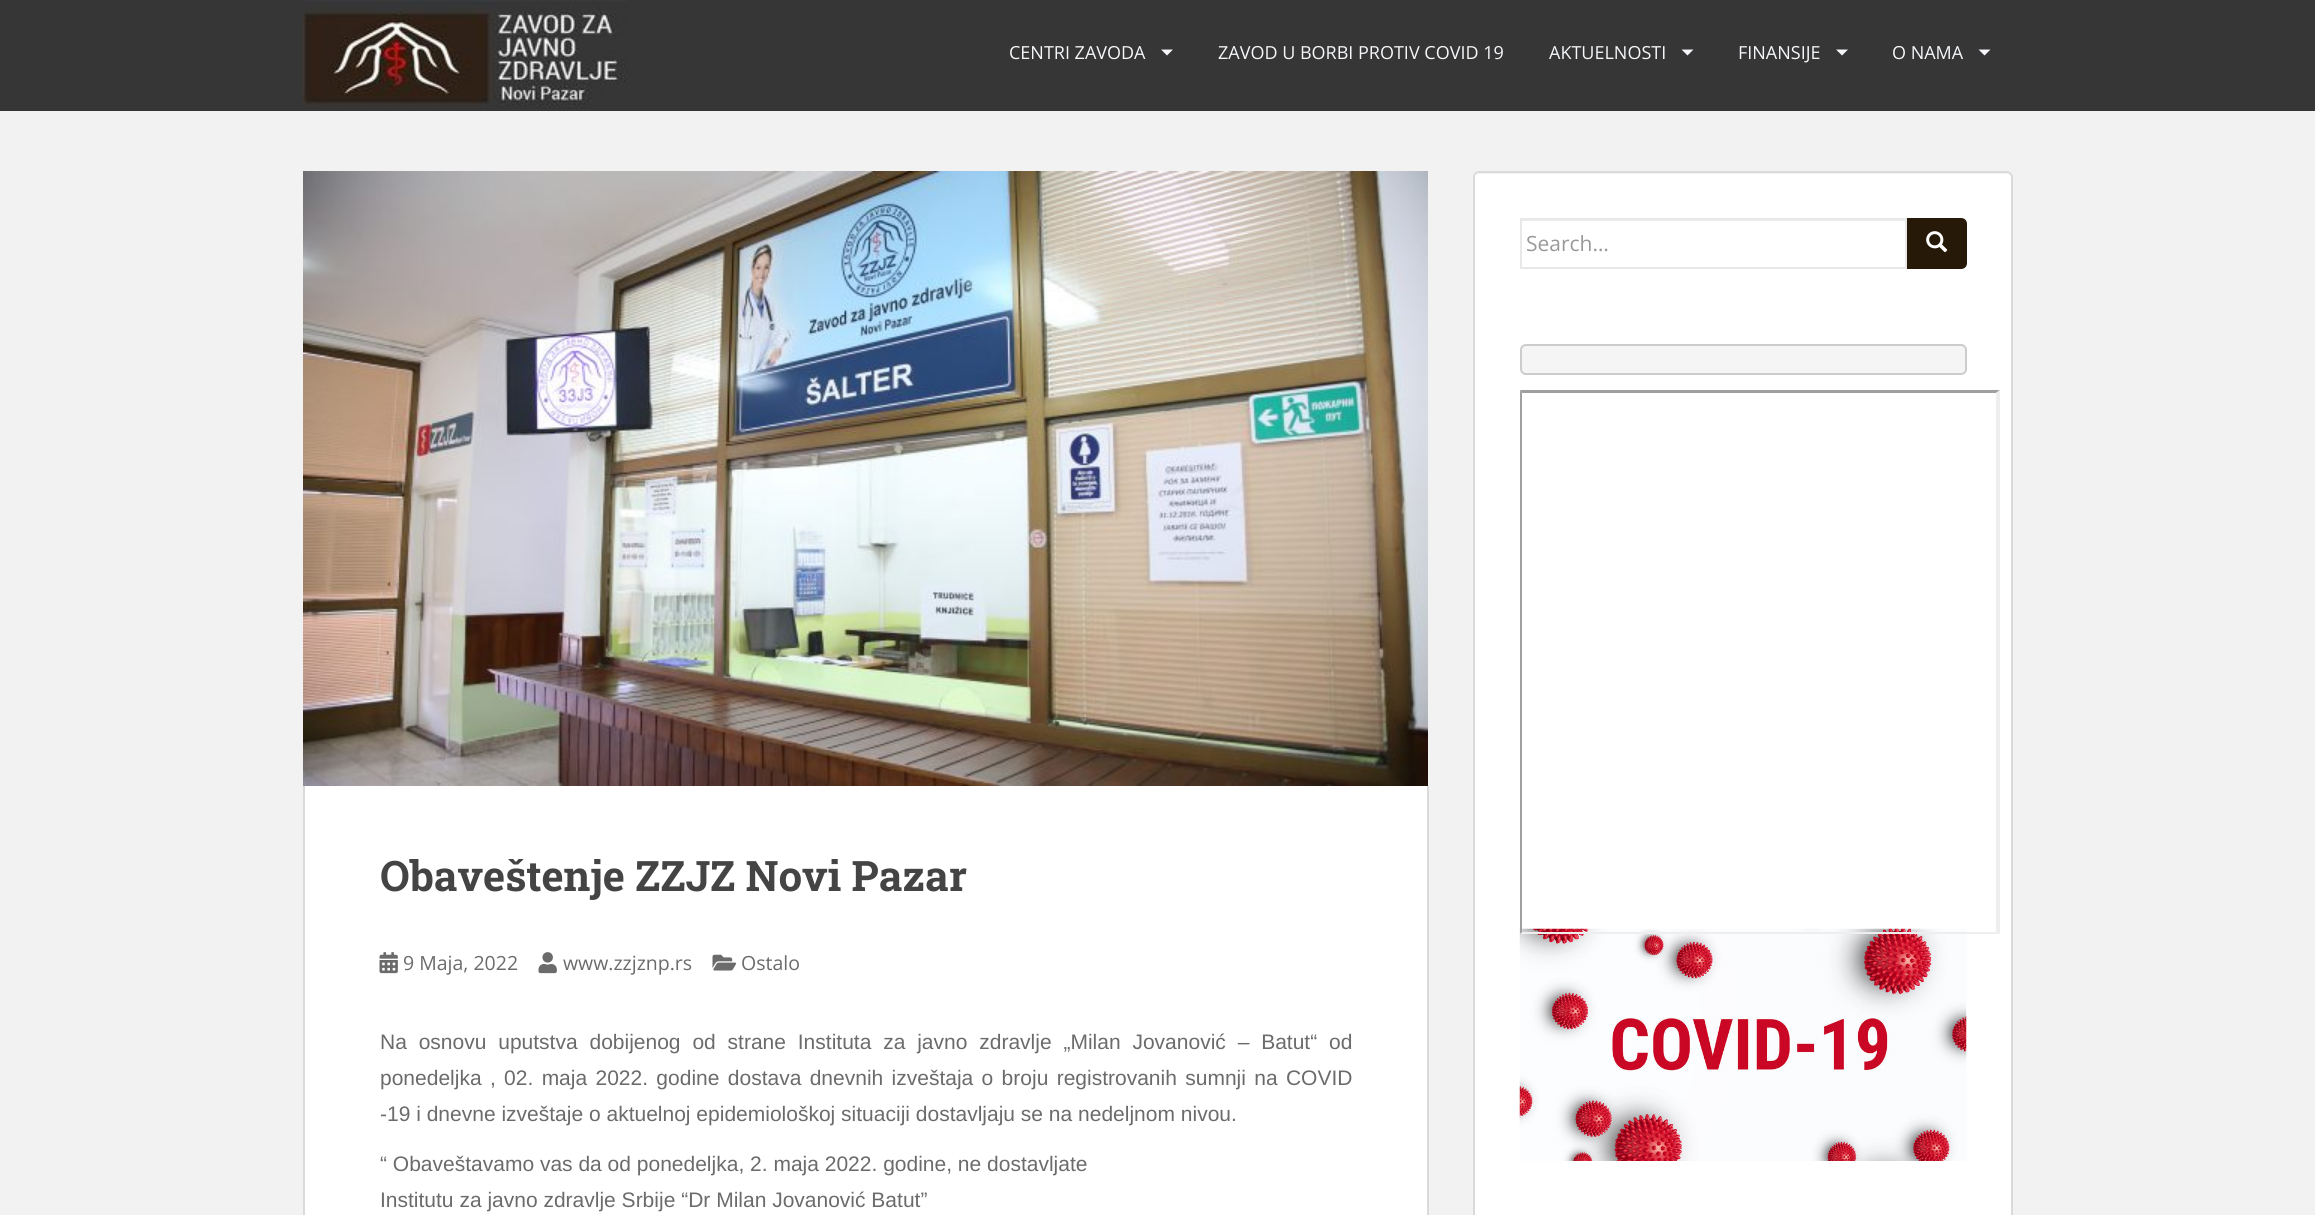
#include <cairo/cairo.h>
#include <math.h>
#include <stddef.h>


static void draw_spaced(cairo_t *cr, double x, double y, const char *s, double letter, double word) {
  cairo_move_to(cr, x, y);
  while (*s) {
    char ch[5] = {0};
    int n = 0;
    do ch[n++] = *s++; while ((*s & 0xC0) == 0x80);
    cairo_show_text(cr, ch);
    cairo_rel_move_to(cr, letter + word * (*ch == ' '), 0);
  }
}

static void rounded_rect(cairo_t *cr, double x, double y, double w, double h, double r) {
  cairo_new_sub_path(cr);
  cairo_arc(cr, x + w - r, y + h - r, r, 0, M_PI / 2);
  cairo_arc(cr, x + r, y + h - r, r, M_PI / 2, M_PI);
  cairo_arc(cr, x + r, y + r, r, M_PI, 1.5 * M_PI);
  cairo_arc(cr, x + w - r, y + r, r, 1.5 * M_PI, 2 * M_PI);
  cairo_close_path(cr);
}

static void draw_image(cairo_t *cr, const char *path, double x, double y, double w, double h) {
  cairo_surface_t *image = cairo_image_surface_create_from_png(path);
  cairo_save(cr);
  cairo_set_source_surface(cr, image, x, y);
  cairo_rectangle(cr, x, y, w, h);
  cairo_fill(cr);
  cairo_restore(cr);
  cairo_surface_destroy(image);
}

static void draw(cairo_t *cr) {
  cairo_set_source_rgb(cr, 242 / 255.0, 242 / 255.0, 242 / 255.0);
  cairo_paint(cr);
  cairo_set_source_rgb(cr, 54 / 255.0, 54 / 255.0, 54 / 255.0);
  cairo_rectangle(cr, 0, 0, 2315, 111);
  cairo_fill(cr);
  draw_image(cr, "images/1.png", 303, 0, 324, 108);
  cairo_set_source_rgb(cr, 245 / 255.0, 247 / 255.0, 250 / 255.0);
  cairo_new_path(cr);
  cairo_move_to(cr, 1161, 49.5);
  cairo_line_to(cr, 1173, 49.5);
  cairo_line_to(cr, 1167, 55.5);
  cairo_close_path(cr);
  cairo_fill(cr);
  cairo_new_path(cr);
  cairo_move_to(cr, 1681.5, 49.5);
  cairo_line_to(cr, 1693.5, 49.5);
  cairo_line_to(cr, 1687.5, 55.5);
  cairo_close_path(cr);
  cairo_fill(cr);
  cairo_new_path(cr);
  cairo_move_to(cr, 1836, 49.5);
  cairo_line_to(cr, 1848, 49.5);
  cairo_line_to(cr, 1842, 55.5);
  cairo_close_path(cr);
  cairo_fill(cr);
  cairo_new_path(cr);
  cairo_move_to(cr, 1978.5, 49.5);
  cairo_line_to(cr, 1990.5, 49.5);
  cairo_line_to(cr, 1984.5, 55.5);
  cairo_close_path(cr);
  cairo_fill(cr);
  cairo_set_source_rgb(cr, 1, 1, 1);
  rounded_rect(cr, 1473, 171, 540, 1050, 6);
  cairo_fill(cr);
  cairo_set_source_rgb(cr, 242 / 255.0, 242 / 255.0, 242 / 255.0);
  cairo_new_path(cr);
  cairo_move_to(cr, 1479, 174);
  cairo_line_to(cr, 2007, 174);
  cairo_curve_to(cr, 2009, 174, 2012, 176, 2012, 178);
  cairo_curve_to(cr, 2012, 175, 2010, 173, 2007, 173);
  cairo_line_to(cr, 1480, 173);
  cairo_curve_to(cr, 1478, 173, 1477, 174, 1476, 175);
  cairo_close_path(cr);
  cairo_fill(cr);
  rounded_rect(cr, 1474, 172, 538, 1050, 5);
  cairo_set_source_rgb(cr, 218 / 255.0, 218 / 255.0, 218 / 255.0);
  cairo_stroke(cr);
  cairo_set_source_rgb(cr, 236 / 255.0, 236 / 255.0, 236 / 255.0);
  cairo_rectangle(cr, 1521, 220, 384, 1);
  cairo_fill(cr);
  cairo_rectangle(cr, 1521, 219, 385, 49);
  cairo_set_source_rgb(cr, 232 / 255.0, 232 / 255.0, 232 / 255.0);
  cairo_stroke(cr);
  cairo_set_source_rgb(cr, 38 / 255.0, 25 / 255.0, 8 / 255.0);
  cairo_new_path(cr);
  cairo_move_to(cr, 1908, 219);
  cairo_line_to(cr, 1961, 219);
  cairo_curve_to(cr, 1964, 219, 1966, 221, 1966, 224);
  cairo_line_to(cr, 1966, 263);
  cairo_curve_to(cr, 1966, 266, 1964, 268, 1961, 268);
  cairo_line_to(cr, 1908, 268);
  cairo_close_path(cr);
  cairo_fill_preserve(cr);
  cairo_stroke(cr);
  draw_image(cr, "images/2.png", 1926, 231, 22, 22);
  cairo_set_source_rgb(cr, 245 / 255.0, 245 / 255.0, 245 / 255.0);
  rounded_rect(cr, 1521, 345, 445, 29, 5);
  cairo_fill_preserve(cr);
  cairo_set_source_rgb(cr, 204 / 255.0, 204 / 255.0, 204 / 255.0);
  cairo_stroke(cr);
  cairo_set_source_rgb(cr, 159 / 255.0, 159 / 255.0, 159 / 255.0);
  cairo_new_path(cr);
  cairo_move_to(cr, 1520, 390);
  cairo_line_to(cr, 2000, 390);
  cairo_line_to(cr, 1996, 393);
  cairo_line_to(cr, 1522, 393);
  cairo_close_path(cr);
  cairo_fill(cr);
  cairo_set_source_rgb(cr, 238 / 255.0, 238 / 255.0, 238 / 255.0);
  cairo_new_path(cr);
  cairo_move_to(cr, 2000, 390);
  cairo_line_to(cr, 2000, 934);
  cairo_line_to(cr, 1996, 932);
  cairo_line_to(cr, 1996, 393);
  cairo_close_path(cr);
  cairo_fill(cr);
  draw_image(cr, "images/3.png", 1519, 928, 448, 233);
  cairo_new_path(cr);
  cairo_move_to(cr, 2000, 934);
  cairo_line_to(cr, 1520, 934);
  cairo_line_to(cr, 1522, 932);
  cairo_line_to(cr, 1996, 932);
  cairo_close_path(cr);
  cairo_fill(cr);
  cairo_set_source_rgb(cr, 159 / 255.0, 159 / 255.0, 159 / 255.0);
  cairo_new_path(cr);
  cairo_move_to(cr, 1520, 934);
  cairo_line_to(cr, 1520, 390);
  cairo_line_to(cr, 1522, 393);
  cairo_line_to(cr, 1522, 932);
  cairo_close_path(cr);
  cairo_fill(cr);
  draw_image(cr, "images/4.png", 303, 171, 1125, 615);
  cairo_set_source_rgb(cr, 1, 1, 1);
  cairo_rectangle(cr, 305, 786, 1122, 429);
  cairo_fill(cr);
  cairo_set_source_rgb(cr, 218 / 255.0, 218 / 255.0, 218 / 255.0);
  cairo_rectangle(cr, 1427, 786, 2, 429);
  cairo_fill(cr);
  cairo_rectangle(cr, 303, 786, 2, 429);
  cairo_fill(cr);
  draw_image(cr, "images/5.png", 379, 952, 19, 22);
  draw_image(cr, "images/6.png", 538, 952, 19, 22);
  draw_image(cr, "images/7.png", 712, 954, 25, 17);
  cairo_select_font_face(cr, "Open Sans", CAIRO_FONT_SLANT_NORMAL, CAIRO_FONT_WEIGHT_NORMAL);
  cairo_set_font_size(cr, 18);
  cairo_set_source_rgb(cr, 245 / 255.0, 247 / 255.0, 250 / 255.0);
  cairo_move_to(cr, 1009, 59);
  cairo_show_text(cr, "CENTRI ZAVODA");
  cairo_move_to(cr, 1218, 59);
  cairo_show_text(cr, "ZAVOD U BORBI PROTIV COVID 19");
  cairo_move_to(cr, 1549, 59);
  cairo_show_text(cr, "AKTUELNOSTI");
  cairo_move_to(cr, 1738, 59);
  cairo_show_text(cr, "FINANSIJE");
  cairo_move_to(cr, 1892, 59);
  cairo_show_text(cr, "O NAMA");
  cairo_set_font_size(cr, 21);
  cairo_set_source_rgb(cr, 153 / 255.0, 153 / 255.0, 153 / 255.0);
  cairo_move_to(cr, 1526, 251);
  cairo_show_text(cr, "Search…");
  cairo_select_font_face(cr, "Roboto Slab", CAIRO_FONT_SLANT_NORMAL, CAIRO_FONT_WEIGHT_BOLD);
  cairo_set_font_size(cr, 42);
  cairo_set_source_rgb(cr, 68 / 255.0, 68 / 255.0, 68 / 255.0);
  cairo_move_to(cr, 380, 891);
  cairo_show_text(cr, "Obaveštenje ZZJZ Novi Pazar");
  cairo_select_font_face(cr, "Open Sans", CAIRO_FONT_SLANT_NORMAL, CAIRO_FONT_WEIGHT_NORMAL);
  cairo_set_font_size(cr, 19.5);
  cairo_set_source_rgb(cr, 107 / 255.0, 107 / 255.0, 107 / 255.0);
  cairo_move_to(cr, 403, 970);
  cairo_show_text(cr, "9 Maja, 2022");
  cairo_move_to(cr, 563, 970);
  cairo_show_text(cr, "www.zzjznp.rs");
  cairo_move_to(cr, 741, 970);
  cairo_show_text(cr, "Ostalo");
  cairo_select_font_face(cr, "Liberation Sans", CAIRO_FONT_SLANT_NORMAL, CAIRO_FONT_WEIGHT_NORMAL);
  cairo_set_font_size(cr, 21);
  draw_spaced(cr, 380, 1049, "Na osnovu uputstva dobijenog od strane Instituta za javno zdravlje „Milan Jovanović – Batut“ od", 0, 6);
  draw_spaced(cr, 380, 1085, "ponedeljka , 02. maja 2022. godine dostava dnevnih izveštaja o broju registrovanih sumnji na COVID", 0, 2.5);
  cairo_move_to(cr, 380, 1121);
  cairo_show_text(cr, "-19 i dnevne izveštaje o aktuelnoj epidemiološkoj situaciji dostavljaju se na nedeljnom nivou.");
  cairo_move_to(cr, 380, 1171);
  cairo_show_text(cr, "“ Obaveštavamo vas da od ponedeljka, 2. maja 2022. godine, ne dostavljate");
  cairo_move_to(cr, 380, 1207);
  cairo_show_text(cr, "Institutu za javno zdravlje Srbije “Dr Milan Jovanović Batut”");
}

int main(void) {
  cairo_surface_t *surface = cairo_image_surface_create(CAIRO_FORMAT_RGB24, 2315, 1215);
  cairo_t *cr = cairo_create(surface);
  cairo_font_options_t *options = cairo_font_options_create();
  cairo_font_options_set_hint_metrics(options, CAIRO_HINT_METRICS_OFF);
  cairo_font_options_set_hint_style(options, CAIRO_HINT_STYLE_NONE);
  cairo_set_font_options(cr, options);
  cairo_set_miter_limit(cr, 4);
  draw(cr);
  cairo_surface_write_to_png(surface, "out.png");
  cairo_font_options_destroy(options);
  cairo_destroy(cr);
  cairo_surface_destroy(surface);
  return 0;
}
